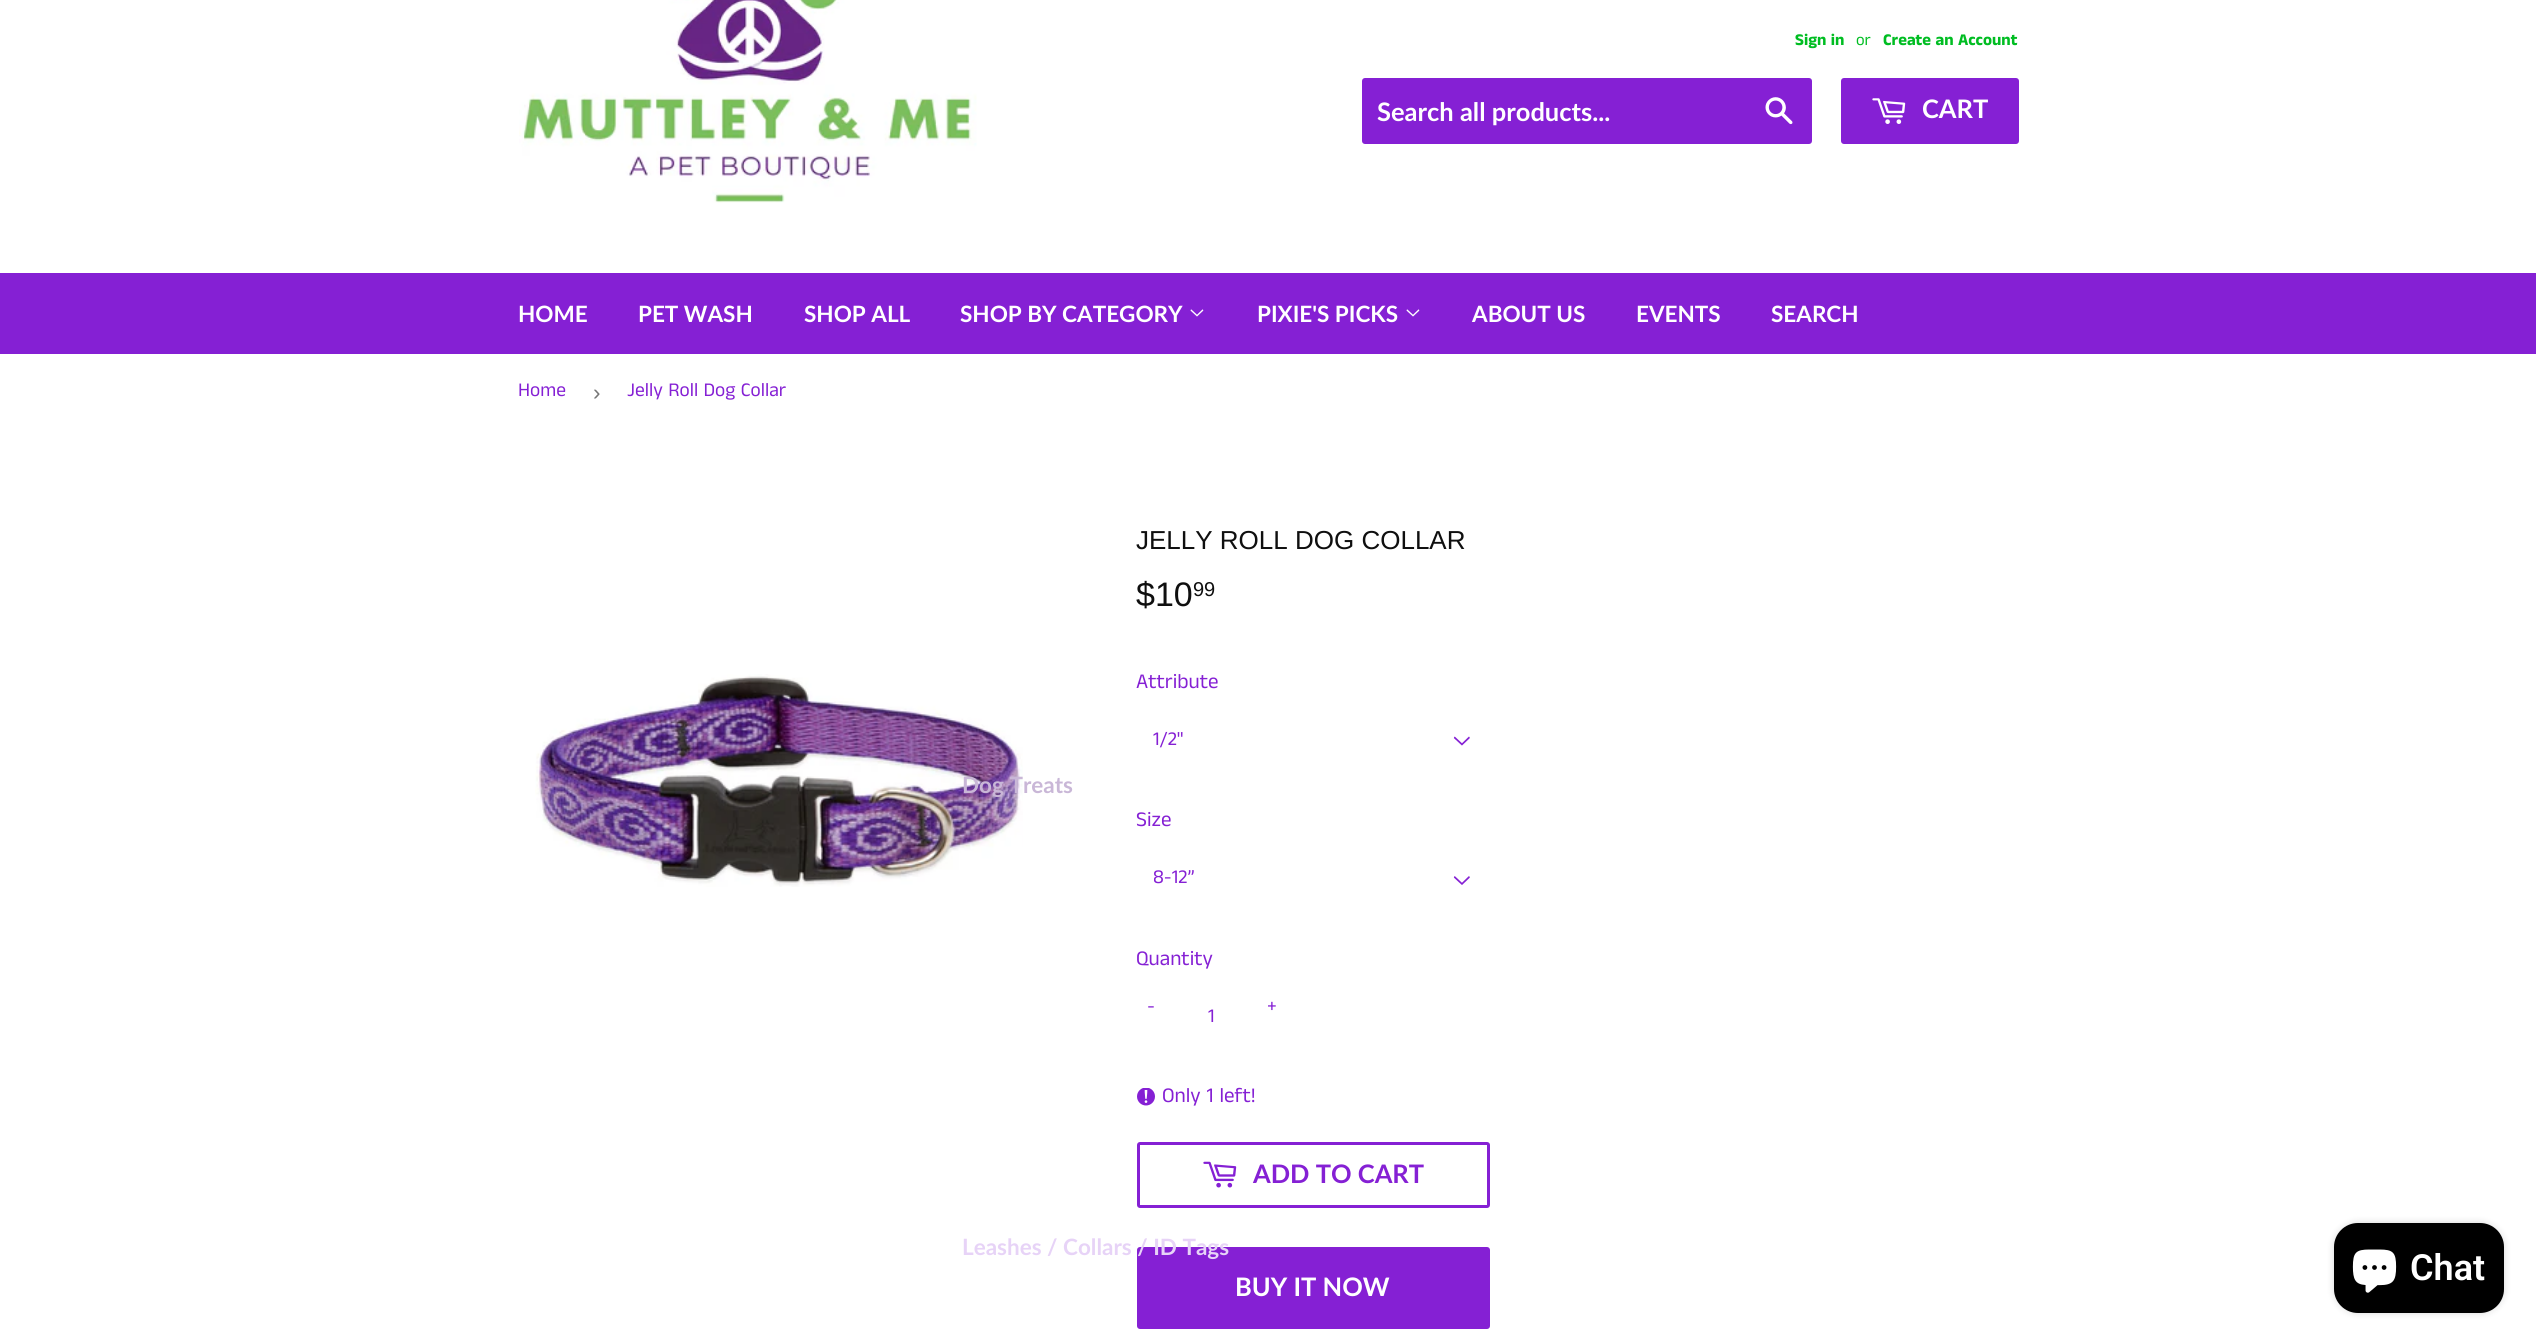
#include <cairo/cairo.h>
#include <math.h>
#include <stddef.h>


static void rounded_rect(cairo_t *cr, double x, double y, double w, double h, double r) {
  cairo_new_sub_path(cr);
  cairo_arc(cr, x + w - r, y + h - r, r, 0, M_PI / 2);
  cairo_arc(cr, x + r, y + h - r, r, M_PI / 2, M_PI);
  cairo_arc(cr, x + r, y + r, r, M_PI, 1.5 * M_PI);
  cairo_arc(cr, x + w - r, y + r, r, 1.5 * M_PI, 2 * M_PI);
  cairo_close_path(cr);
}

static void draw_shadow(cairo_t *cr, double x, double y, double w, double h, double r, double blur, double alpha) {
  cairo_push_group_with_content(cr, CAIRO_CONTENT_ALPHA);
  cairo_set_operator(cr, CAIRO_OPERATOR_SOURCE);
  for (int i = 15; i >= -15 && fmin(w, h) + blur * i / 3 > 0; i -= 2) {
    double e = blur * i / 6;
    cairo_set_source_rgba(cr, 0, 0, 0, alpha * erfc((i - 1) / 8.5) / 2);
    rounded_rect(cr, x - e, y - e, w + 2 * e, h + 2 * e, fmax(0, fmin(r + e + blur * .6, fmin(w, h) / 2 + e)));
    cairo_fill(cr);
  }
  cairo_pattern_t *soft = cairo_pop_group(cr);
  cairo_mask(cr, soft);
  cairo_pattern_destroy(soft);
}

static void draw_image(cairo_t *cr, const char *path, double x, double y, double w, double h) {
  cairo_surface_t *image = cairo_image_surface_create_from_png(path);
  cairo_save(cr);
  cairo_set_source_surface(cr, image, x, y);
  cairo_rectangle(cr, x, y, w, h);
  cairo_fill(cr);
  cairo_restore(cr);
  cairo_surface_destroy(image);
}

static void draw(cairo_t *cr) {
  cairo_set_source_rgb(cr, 1, 1, 1);
  cairo_paint(cr);
  draw_image(cr, "images/1.png", 519, 0, 458, 203);
  cairo_set_source_rgb(cr, 133 / 255.0, 32 / 255.0, 212 / 255.0);
  rounded_rect(cr, 1362, 78, 450, 66, 3);
  cairo_fill(cr);
  draw_image(cr, "images/2.png", 1765, 97, 28, 28);
  rounded_rect(cr, 1841, 78, 178, 66, 3);
  cairo_fill(cr);
  draw_image(cr, "images/3.png", 1872, 98, 34, 26);
  cairo_rectangle(cr, 0, 273, 2536, 81);
  cairo_fill(cr);
  draw_image(cr, "images/4.png", 1190, 309, 14, 8);
  draw_image(cr, "images/4.png", 1406, 309, 14, 8);
  draw_image(cr, "images/5.png", 535, 674, 488, 213);
  draw_image(cr, "images/6.png", 1453, 736, 17, 10);
  draw_image(cr, "images/7.png", 1453, 876, 17, 9);
  draw_image(cr, "images/8.png", 1137, 1088, 18, 18);
  rounded_rect(cr, 1138.5, 1143.5, 350, 63, 1.5);
  cairo_set_line_width(cr, 3);
  cairo_stroke(cr);
  draw_image(cr, "images/9.png", 1203, 1161, 34, 27);
  rounded_rect(cr, 1137, 1247, 353, 82, 3);
  cairo_fill(cr);
  cairo_set_source_rgb(cr, 0, 0, 0);
  draw_shadow(cr, 2334, 1223, 170, 90, 24, 4, 0.15);
  cairo_set_source_rgb(cr, 0, 0, 0);
  rounded_rect(cr, 2334, 1223, 170, 90, 24);
  cairo_fill(cr);
  draw_image(cr, "images/10.png", 2352, 1249, 45, 44);
  cairo_select_font_face(cr, "Anek Tamil", CAIRO_FONT_SLANT_NORMAL, CAIRO_FONT_WEIGHT_BOLD);
  cairo_set_font_size(cr, 16.5);
  cairo_set_source_rgb(cr, 0, 189 / 255.0, 34 / 255.0);
  cairo_move_to(cr, 1795, 45);
  cairo_show_text(cr, "Sign in");
  cairo_select_font_face(cr, "Anek Tamil", CAIRO_FONT_SLANT_NORMAL, CAIRO_FONT_WEIGHT_NORMAL);
  cairo_move_to(cr, 1856, 45);
  cairo_show_text(cr, "or");
  cairo_select_font_face(cr, "Anek Tamil", CAIRO_FONT_SLANT_NORMAL, CAIRO_FONT_WEIGHT_BOLD);
  cairo_move_to(cr, 1883, 45);
  cairo_show_text(cr, "Create an Account");
  cairo_select_font_face(cr, "Lato", CAIRO_FONT_SLANT_NORMAL, CAIRO_FONT_WEIGHT_BOLD);
  cairo_set_font_size(cr, 25.5);
  cairo_set_source_rgb(cr, 1, 1, 1);
  cairo_move_to(cr, 1377, 121);
  cairo_show_text(cr, "Search all products...");
  cairo_move_to(cr, 1922, 118);
  cairo_show_text(cr, "CART");
  cairo_set_font_size(cr, 22.5);
  cairo_move_to(cr, 518, 322);
  cairo_show_text(cr, "HOME");
  cairo_move_to(cr, 638, 322);
  cairo_show_text(cr, "PET WASH");
  cairo_move_to(cr, 804, 322);
  cairo_show_text(cr, "SHOP ALL");
  cairo_move_to(cr, 960, 322);
  cairo_show_text(cr, "SHOP BY CATEGORY");
  cairo_set_source_rgb(cr, 201 / 255.0, 183 / 255.0, 215 / 255.0);
  cairo_move_to(cr, 962, 793);
  cairo_show_text(cr, "Dog Treats");
  cairo_set_source_rgb(cr, 231 / 255.0, 211 / 255.0, 247 / 255.0);
  cairo_move_to(cr, 962, 1255);
  cairo_show_text(cr, "Leashes / Collars / ID Tags");
  cairo_set_source_rgb(cr, 1, 1, 1);
  cairo_move_to(cr, 1257, 322);
  cairo_show_text(cr, "PIXIE'S PICKS");
  cairo_move_to(cr, 1472, 322);
  cairo_show_text(cr, "ABOUT US");
  cairo_move_to(cr, 1636, 322);
  cairo_show_text(cr, "EVENTS");
  cairo_move_to(cr, 1771, 322);
  cairo_show_text(cr, "SEARCH");
  cairo_select_font_face(cr, "Anek Tamil", CAIRO_FONT_SLANT_NORMAL, CAIRO_FONT_WEIGHT_NORMAL);
  cairo_set_font_size(cr, 19.5);
  cairo_set_source_rgb(cr, 133 / 255.0, 32 / 255.0, 212 / 255.0);
  cairo_move_to(cr, 518, 396);
  cairo_show_text(cr, "Home");
  cairo_select_font_face(cr, "Liberation Sans", CAIRO_FONT_SLANT_NORMAL, CAIRO_FONT_WEIGHT_NORMAL);
  cairo_set_font_size(cr, 22.5);
  cairo_set_source_rgb(cr, 118 / 255.0, 118 / 255.0, 118 / 255.0);
  cairo_move_to(cr, 593, 400);
  cairo_show_text(cr, "›");
  cairo_select_font_face(cr, "Anek Tamil", CAIRO_FONT_SLANT_NORMAL, CAIRO_FONT_WEIGHT_NORMAL);
  cairo_set_font_size(cr, 19.5);
  cairo_set_source_rgb(cr, 133 / 255.0, 32 / 255.0, 212 / 255.0);
  cairo_move_to(cr, 627, 396);
  cairo_show_text(cr, "Jelly Roll Dog Collar");
  cairo_select_font_face(cr, "Arimo", CAIRO_FONT_SLANT_NORMAL, CAIRO_FONT_WEIGHT_NORMAL);
  cairo_set_font_size(cr, 26);
  cairo_set_source_rgb(cr, 15 / 255.0, 15 / 255.0, 15 / 255.0);
  cairo_move_to(cr, 1136, 549);
  cairo_show_text(cr, "JELLY ROLL DOG COLLAR");
  cairo_set_font_size(cr, 34);
  cairo_move_to(cr, 1136, 606);
  cairo_show_text(cr, "$10");
  cairo_set_font_size(cr, 20);
  cairo_move_to(cr, 1193, 596);
  cairo_show_text(cr, "99");
  cairo_select_font_face(cr, "Anek Tamil", CAIRO_FONT_SLANT_NORMAL, CAIRO_FONT_WEIGHT_NORMAL);
  cairo_set_font_size(cr, 21);
  cairo_set_source_rgb(cr, 133 / 255.0, 32 / 255.0, 212 / 255.0);
  cairo_move_to(cr, 1136, 688);
  cairo_show_text(cr, "Attribute");
  cairo_set_font_size(cr, 19.5);
  cairo_move_to(cr, 1153, 745);
  cairo_show_text(cr, "1/2\"");
  cairo_set_font_size(cr, 21);
  cairo_move_to(cr, 1136, 826);
  cairo_show_text(cr, "Size");
  cairo_save(cr);
  cairo_rectangle(cr, 1154, 866, 292, 27);
  cairo_clip(cr);
  cairo_set_font_size(cr, 19.5);
  cairo_move_to(cr, 1153, 883);
  cairo_show_text(cr, "8-12”");
  cairo_restore(cr);
  cairo_move_to(cr, 1136, 965);
  cairo_show_text(cr, "Quantity");
  cairo_set_font_size(cr, 19.5);
  cairo_move_to(cr, 1147, 1012);
  cairo_show_text(cr, "-");
  cairo_move_to(cr, 1267, 1012);
  cairo_show_text(cr, "+");
  cairo_move_to(cr, 1208, 1022);
  cairo_show_text(cr, "1");
  cairo_set_font_size(cr, 21);
  cairo_move_to(cr, 1162, 1102);
  cairo_show_text(cr, "Only 1 left!");
  cairo_select_font_face(cr, "Lato", CAIRO_FONT_SLANT_NORMAL, CAIRO_FONT_WEIGHT_BOLD);
  cairo_set_font_size(cr, 25.5);
  cairo_move_to(cr, 1253, 1183);
  cairo_show_text(cr, "ADD TO CART");
  cairo_set_source_rgb(cr, 1, 1, 1);
  cairo_move_to(cr, 1235, 1296);
  cairo_show_text(cr, "BUY IT NOW");
  cairo_select_font_face(cr, "Roboto SemiBold", CAIRO_FONT_SLANT_NORMAL, CAIRO_FONT_WEIGHT_NORMAL);
  cairo_set_font_size(cr, 36);
  cairo_move_to(cr, 2410, 1280);
  cairo_show_text(cr, "Chat");
}

int main(void) {
  cairo_surface_t *surface = cairo_image_surface_create(CAIRO_FORMAT_RGB24, 2536, 1344);
  cairo_t *cr = cairo_create(surface);
  cairo_font_options_t *options = cairo_font_options_create();
  cairo_font_options_set_hint_metrics(options, CAIRO_HINT_METRICS_OFF);
  cairo_font_options_set_hint_style(options, CAIRO_HINT_STYLE_NONE);
  cairo_set_font_options(cr, options);
  cairo_set_miter_limit(cr, 4);
  draw(cr);
  cairo_surface_write_to_png(surface, "out.png");
  cairo_font_options_destroy(options);
  cairo_destroy(cr);
  cairo_surface_destroy(surface);
  return 0;
}
